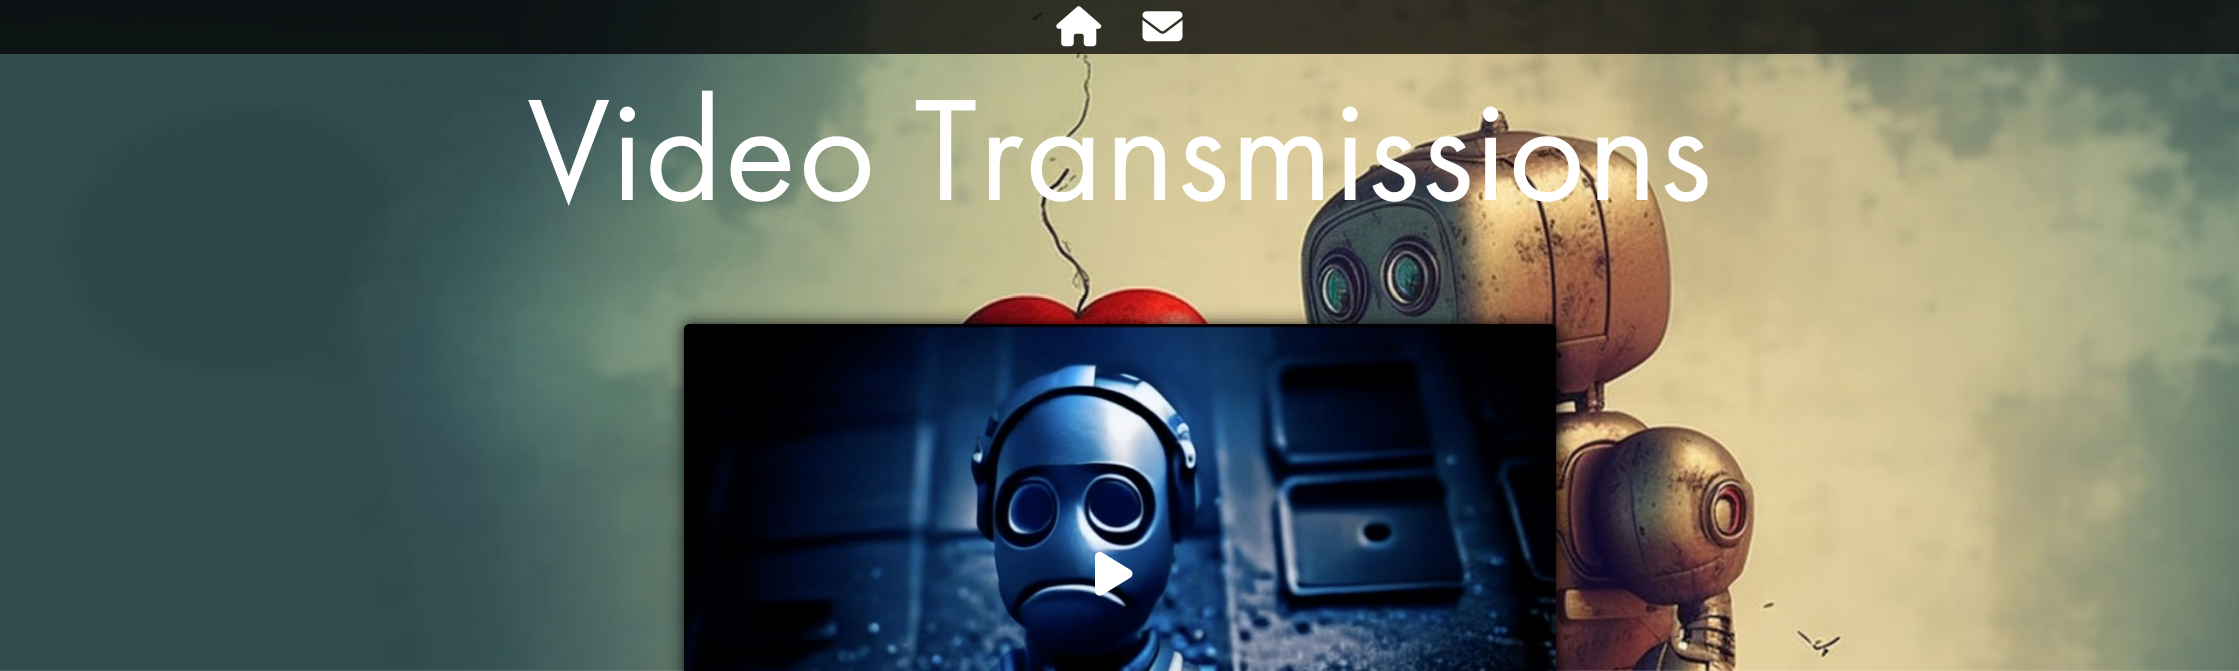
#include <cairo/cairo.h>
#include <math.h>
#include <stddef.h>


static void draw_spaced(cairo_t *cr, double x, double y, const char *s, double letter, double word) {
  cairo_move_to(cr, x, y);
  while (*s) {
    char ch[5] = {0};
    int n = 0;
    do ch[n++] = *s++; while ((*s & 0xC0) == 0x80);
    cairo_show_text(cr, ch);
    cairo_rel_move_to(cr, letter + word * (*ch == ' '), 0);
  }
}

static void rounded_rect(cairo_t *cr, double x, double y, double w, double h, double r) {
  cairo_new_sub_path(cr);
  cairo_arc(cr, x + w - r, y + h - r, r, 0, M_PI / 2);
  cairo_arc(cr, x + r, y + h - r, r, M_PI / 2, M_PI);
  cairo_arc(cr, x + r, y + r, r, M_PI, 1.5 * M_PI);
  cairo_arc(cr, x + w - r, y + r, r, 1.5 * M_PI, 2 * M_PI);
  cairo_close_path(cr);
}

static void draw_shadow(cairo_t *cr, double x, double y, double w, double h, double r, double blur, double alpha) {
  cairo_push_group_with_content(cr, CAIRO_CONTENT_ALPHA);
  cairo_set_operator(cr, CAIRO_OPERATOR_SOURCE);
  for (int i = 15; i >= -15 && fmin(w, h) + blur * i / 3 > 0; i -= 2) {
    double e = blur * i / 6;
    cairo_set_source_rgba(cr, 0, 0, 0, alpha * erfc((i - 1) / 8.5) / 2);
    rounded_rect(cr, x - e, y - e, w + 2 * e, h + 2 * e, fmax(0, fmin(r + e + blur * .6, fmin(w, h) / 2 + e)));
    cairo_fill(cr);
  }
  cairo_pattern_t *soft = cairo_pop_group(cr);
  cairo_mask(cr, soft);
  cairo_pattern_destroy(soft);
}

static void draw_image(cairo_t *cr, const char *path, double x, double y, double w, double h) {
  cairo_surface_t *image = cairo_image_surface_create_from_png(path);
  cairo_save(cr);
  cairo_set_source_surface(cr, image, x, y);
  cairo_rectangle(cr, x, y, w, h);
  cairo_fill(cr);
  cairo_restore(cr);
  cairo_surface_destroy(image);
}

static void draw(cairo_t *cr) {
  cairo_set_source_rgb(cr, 1, 1, 1);
  cairo_paint(cr);
  draw_image(cr, "images/1.png", 0, 0, 2239, 671);
  cairo_set_source_rgba(cr, 0, 0, 0, 0.75);
  cairo_rectangle(cr, 0, 0, 2239, 54);
  cairo_fill(cr);
  draw_image(cr, "images/2.png", 1056, 6, 46, 41);
  draw_image(cr, "images/3.png", 1142, 11, 41, 31);
  cairo_set_source_rgb(cr, 0, 0, 0);
  draw_shadow(cr, 686, 326, 873, 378, 6, 9, 1);
  draw_image(cr, "images/4.png", 683, 323, 874, 348);
  draw_image(cr, "images/5.png", 1095, 551, 38, 45);
  cairo_select_font_face(cr, "Futura PT", CAIRO_FONT_SLANT_NORMAL, CAIRO_FONT_WEIGHT_NORMAL);
  cairo_set_font_size(cr, 150);
  cairo_set_source_rgb(cr, 1, 1, 1);
  draw_spaced(cr, 527, 200, "Video Transmissions", 1.25, 0);
}

int main(void) {
  cairo_surface_t *surface = cairo_image_surface_create(CAIRO_FORMAT_RGB24, 2239, 671);
  cairo_t *cr = cairo_create(surface);
  cairo_font_options_t *options = cairo_font_options_create();
  cairo_font_options_set_hint_metrics(options, CAIRO_HINT_METRICS_OFF);
  cairo_font_options_set_hint_style(options, CAIRO_HINT_STYLE_NONE);
  cairo_set_font_options(cr, options);
  cairo_set_miter_limit(cr, 4);
  draw(cr);
  cairo_surface_write_to_png(surface, "out.png");
  cairo_font_options_destroy(options);
  cairo_destroy(cr);
  cairo_surface_destroy(surface);
  return 0;
}
